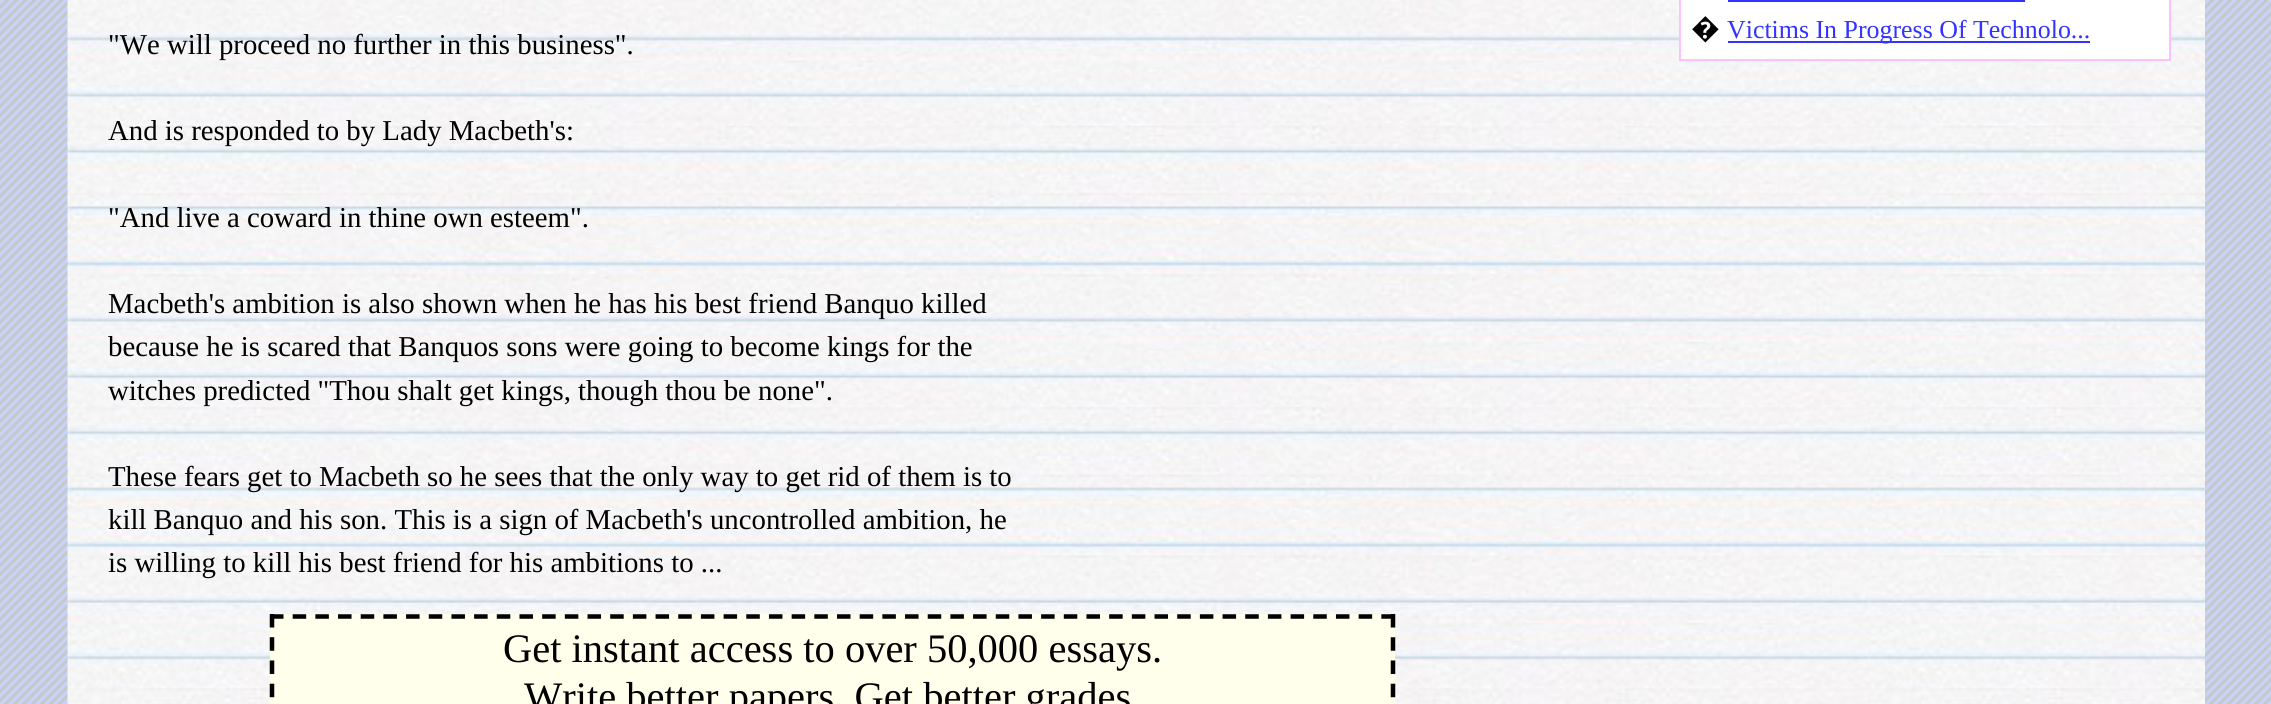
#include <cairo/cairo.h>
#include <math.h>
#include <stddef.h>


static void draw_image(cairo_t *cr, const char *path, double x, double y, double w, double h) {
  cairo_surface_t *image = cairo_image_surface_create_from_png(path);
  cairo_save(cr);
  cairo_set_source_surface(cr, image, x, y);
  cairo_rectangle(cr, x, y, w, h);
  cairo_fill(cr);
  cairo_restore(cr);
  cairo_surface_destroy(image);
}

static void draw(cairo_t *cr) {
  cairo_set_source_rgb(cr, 1, 1, 1);
  cairo_paint(cr);
  draw_image(cr, "images/1.png", 0, 0, 2271, 704);
  draw_image(cr, "images/2.png", 67, 0, 2138, 704);
  cairo_set_source_rgb(cr, 1, 192 / 255.0, 1);
  cairo_rectangle(cr, 2169, 0, 2, 61);
  cairo_fill(cr);
  cairo_rectangle(cr, 1679, 59, 492, 2);
  cairo_fill(cr);
  cairo_rectangle(cr, 1679, 0, 2, 61);
  cairo_fill(cr);
  cairo_set_source_rgb(cr, 1, 1, 1);
  cairo_rectangle(cr, 1681, 0, 488, 59);
  cairo_fill(cr);
  cairo_set_source_rgb(cr, 51 / 255.0, 51 / 255.0, 1);
  cairo_rectangle(cr, 1728, 0, 297, 2);
  cairo_fill(cr);
  cairo_rectangle(cr, 1728, 41, 362, 2);
  cairo_fill(cr);
  cairo_set_source_rgb(cr, 1, 1, 235 / 255.0);
  cairo_rectangle(cr, 270, 614, 1125, 90);
  cairo_fill(cr);
  cairo_new_path(cr);
  cairo_move_to(cr, 270, 616.5);
  cairo_line_to(cr, 1395, 616.5);
  cairo_set_source_rgb(cr, 0, 0, 0);
  cairo_set_line_width(cr, 4.5);
  cairo_set_dash(cr, (double[]){13.5, 9.18}, 2, 0);
  cairo_stroke(cr);
  cairo_new_path(cr);
  cairo_move_to(cr, 1393, 614);
  cairo_line_to(cr, 1393, 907);
  cairo_set_dash(cr, (double[]){13.5, 9.74}, 2, 0);
  cairo_stroke(cr);
  cairo_new_path(cr);
  cairo_move_to(cr, 272, 614);
  cairo_line_to(cr, 272, 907);
  cairo_stroke(cr);
  cairo_select_font_face(cr, "Noto Sans", CAIRO_FONT_SLANT_NORMAL, CAIRO_FONT_WEIGHT_NORMAL);
  cairo_set_font_size(cr, 28.8);
  cairo_move_to(cr, 1691, 38);
  cairo_show_text(cr, "�");
  cairo_select_font_face(cr, "Liberation Serif", CAIRO_FONT_SLANT_NORMAL, CAIRO_FONT_WEIGHT_NORMAL);
  cairo_set_font_size(cr, 25.9);
  cairo_set_source_rgb(cr, 51 / 255.0, 51 / 255.0, 1);
  cairo_move_to(cr, 1727, 38);
  cairo_show_text(cr, "Victims In Progress Of Technolo...");
  cairo_set_font_size(cr, 28.8);
  cairo_set_source_rgb(cr, 0, 0, 0);
  cairo_move_to(cr, 108, 54);
  cairo_show_text(cr, "\"We will proceed no further in this business\".");
  cairo_move_to(cr, 108, 140);
  cairo_show_text(cr, "And is responded to by Lady Macbeth's:");
  cairo_move_to(cr, 108, 227);
  cairo_show_text(cr, "\"And live a coward in thine own esteem\".");
  cairo_move_to(cr, 108, 313);
  cairo_show_text(cr, "Macbeth's ambition is also shown when he has his best friend Banquo killed");
  cairo_move_to(cr, 108, 356);
  cairo_show_text(cr, "because he is scared that Banquos sons were going to become kings for the");
  cairo_move_to(cr, 108, 400);
  cairo_show_text(cr, "witches predicted \"Thou shalt get kings, though thou be none\".");
  cairo_move_to(cr, 108, 486);
  cairo_show_text(cr, "These fears get to Macbeth so he sees that the only way to get rid of them is to");
  cairo_move_to(cr, 108, 529);
  cairo_show_text(cr, "kill Banquo and his son. This is a sign of Macbeth's uncontrolled ambition, he");
  cairo_move_to(cr, 108, 572);
  cairo_show_text(cr, "is willing to kill his best friend for his ambitions to ...");
  cairo_set_font_size(cr, 40.5);
  cairo_move_to(cr, 503, 662);
  cairo_show_text(cr, "Get instant access to over 50,000 essays.");
  cairo_move_to(cr, 524, 710);
  cairo_show_text(cr, "Write better papers. Get better grades");
}

int main(void) {
  cairo_surface_t *surface = cairo_image_surface_create(CAIRO_FORMAT_RGB24, 2271, 704);
  cairo_t *cr = cairo_create(surface);
  cairo_font_options_t *options = cairo_font_options_create();
  cairo_font_options_set_hint_metrics(options, CAIRO_HINT_METRICS_OFF);
  cairo_font_options_set_hint_style(options, CAIRO_HINT_STYLE_NONE);
  cairo_set_font_options(cr, options);
  cairo_set_miter_limit(cr, 4);
  draw(cr);
  cairo_surface_write_to_png(surface, "out.png");
  cairo_font_options_destroy(options);
  cairo_destroy(cr);
  cairo_surface_destroy(surface);
  return 0;
}
